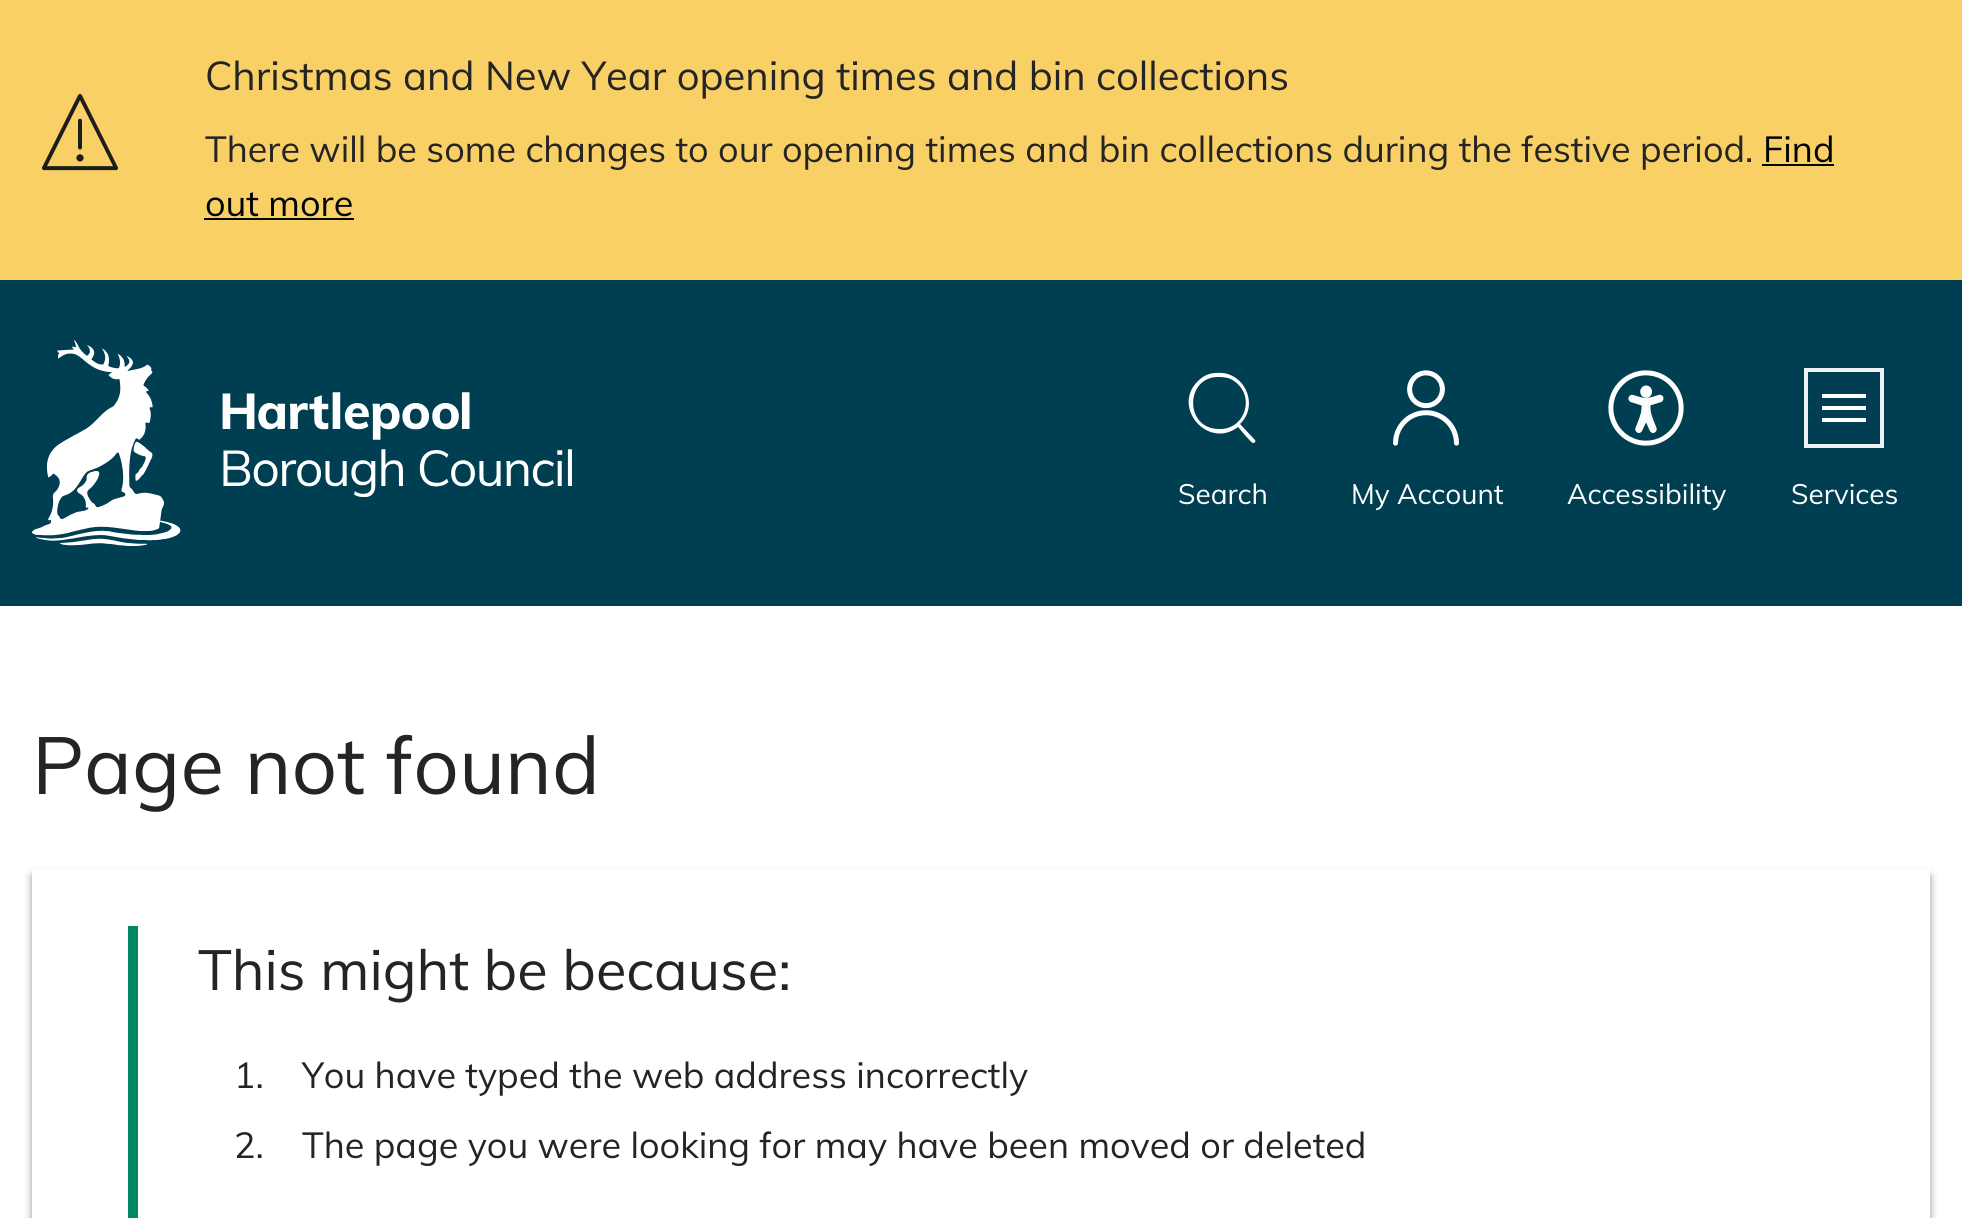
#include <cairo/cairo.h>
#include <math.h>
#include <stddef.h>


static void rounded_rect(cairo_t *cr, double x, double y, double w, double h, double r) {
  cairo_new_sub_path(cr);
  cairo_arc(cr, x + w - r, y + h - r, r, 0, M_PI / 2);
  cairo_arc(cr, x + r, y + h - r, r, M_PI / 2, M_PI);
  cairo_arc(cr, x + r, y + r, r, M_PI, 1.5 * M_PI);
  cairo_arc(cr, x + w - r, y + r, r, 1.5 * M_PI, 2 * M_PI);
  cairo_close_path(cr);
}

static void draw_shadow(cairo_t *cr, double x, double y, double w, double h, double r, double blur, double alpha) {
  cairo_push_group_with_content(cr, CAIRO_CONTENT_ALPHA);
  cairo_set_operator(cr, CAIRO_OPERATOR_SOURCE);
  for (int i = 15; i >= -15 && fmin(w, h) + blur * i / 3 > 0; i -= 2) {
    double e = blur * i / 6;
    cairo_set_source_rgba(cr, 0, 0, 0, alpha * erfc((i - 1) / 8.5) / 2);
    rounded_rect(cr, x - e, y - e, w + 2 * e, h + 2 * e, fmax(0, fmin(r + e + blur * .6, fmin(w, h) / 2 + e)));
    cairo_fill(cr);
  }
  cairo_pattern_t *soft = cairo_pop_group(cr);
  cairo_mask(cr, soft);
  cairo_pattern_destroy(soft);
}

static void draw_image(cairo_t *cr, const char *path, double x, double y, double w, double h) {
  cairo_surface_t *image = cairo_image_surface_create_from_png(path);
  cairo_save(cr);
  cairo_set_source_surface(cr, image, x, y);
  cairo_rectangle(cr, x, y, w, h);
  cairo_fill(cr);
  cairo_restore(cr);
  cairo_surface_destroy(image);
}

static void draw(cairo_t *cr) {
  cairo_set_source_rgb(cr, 1, 1, 1);
  cairo_paint(cr);
  cairo_set_source_rgb(cr, 249 / 255.0, 208 / 255.0, 102 / 255.0);
  cairo_rectangle(cr, 0, 0, 1962, 280);
  cairo_fill(cr);
  draw_image(cr, "images/1.png", 41, 93, 78, 78);
  cairo_set_source_rgb(cr, 0, 4 / 255.0, 6 / 255.0);
  cairo_rectangle(cr, 1762, 164, 72, 2);
  cairo_fill(cr);
  cairo_rectangle(cr, 204, 218, 150, 2);
  cairo_fill(cr);
  cairo_set_source_rgb(cr, 0, 62 / 255.0, 82 / 255.0);
  cairo_rectangle(cr, 0, 280, 1962, 326);
  cairo_fill(cr);
  draw_image(cr, "images/2.png", 32, 340, 540, 206);
  cairo_set_source_rgb(cr, 1, 1, 1);
  cairo_new_path(cr);
  cairo_move_to(cr, 1255, 440);
  cairo_line_to(cr, 1240, 424);
  cairo_curve_to(cr, 1260, 405, 1244, 370, 1216, 373);
  cairo_curve_to(cr, 1209, 373, 1203, 376, 1198, 381);
  cairo_curve_to(cr, 1171, 407, 1208, 450, 1238, 427);
  cairo_curve_to(cr, 1240, 429, 1251, 443, 1253, 443);
  cairo_curve_to(cr, 1255, 443, 1256, 441, 1255, 440);
  cairo_close_path(cr);
  cairo_move_to(cr, 1219, 429);
  cairo_curve_to(cr, 1184, 429, 1185, 376, 1219, 377);
  cairo_curve_to(cr, 1225, 377, 1230, 378, 1234, 381);
  cairo_curve_to(cr, 1256, 396, 1245, 430, 1219, 429);
  cairo_close_path(cr);
  cairo_fill(cr);
  draw_image(cr, "images/3.png", 1393, 370, 66, 76);
  draw_image(cr, "images/4.png", 1608, 370, 76, 76);
  cairo_rectangle(cr, 1806, 370, 76, 76);
  cairo_set_source_rgb(cr, 241 / 255.0, 241 / 255.0, 241 / 255.0);
  cairo_set_line_width(cr, 4);
  cairo_stroke(cr);
  cairo_set_source_rgb(cr, 1, 1, 1);
  cairo_rectangle(cr, 1822, 394, 44, 4);
  cairo_fill(cr);
  cairo_rectangle(cr, 1822, 406, 44, 4);
  cairo_fill(cr);
  cairo_rectangle(cr, 1822, 418, 44, 4);
  cairo_fill(cr);
  cairo_save(cr);
  cairo_set_fill_rule(cr, CAIRO_FILL_RULE_EVEN_ODD);
  cairo_new_path(cr);
  cairo_move_to(cr, 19, 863);
  cairo_line_to(cr, 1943, 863);
  cairo_line_to(cr, 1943, 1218);
  cairo_line_to(cr, 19, 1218);
  cairo_close_path(cr);
  cairo_move_to(cr, 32, 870);
  cairo_line_to(cr, 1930, 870);
  cairo_line_to(cr, 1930, 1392);
  cairo_line_to(cr, 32, 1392);
  cairo_close_path(cr);
  cairo_clip(cr);
  cairo_set_source_rgb(cr, 97 / 255.0, 99 / 255.0, 101 / 255.0);
  draw_shadow(cr, 32, 876, 1898, 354, 0, 4, 0.7);
  cairo_restore(cr);
  cairo_set_source_rgb(cr, 0, 135 / 255.0, 99 / 255.0);
  cairo_rectangle(cr, 128, 926, 10, 292);
  cairo_fill(cr);
  cairo_select_font_face(cr, "Muli", CAIRO_FONT_SLANT_NORMAL, CAIRO_FONT_WEIGHT_NORMAL);
  cairo_set_font_size(cr, 40);
  cairo_set_source_rgb(cr, 36 / 255.0, 36 / 255.0, 36 / 255.0);
  cairo_move_to(cr, 205, 90);
  cairo_show_text(cr, "Christmas and New Year opening times and bin collections");
  cairo_set_font_size(cr, 36);
  cairo_move_to(cr, 205, 162);
  cairo_show_text(cr, "There will be some changes to our opening times and bin collections during the festive period.");
  cairo_set_source_rgb(cr, 0, 4 / 255.0, 6 / 255.0);
  cairo_move_to(cr, 1763, 162);
  cairo_show_text(cr, "Find");
  cairo_move_to(cr, 205, 216);
  cairo_show_text(cr, "out more");
  cairo_set_font_size(cr, 28);
  cairo_set_source_rgb(cr, 1, 1, 1);
  cairo_move_to(cr, 1178, 504);
  cairo_show_text(cr, "Search");
  cairo_move_to(cr, 1351, 504);
  cairo_show_text(cr, "My Account");
  cairo_move_to(cr, 1567, 504);
  cairo_show_text(cr, "Accessibility");
  cairo_move_to(cr, 1791, 504);
  cairo_show_text(cr, "Services");
  cairo_set_font_size(cr, 80);
  cairo_set_source_rgb(cr, 36 / 255.0, 36 / 255.0, 36 / 255.0);
  cairo_move_to(cr, 32, 794);
  cairo_show_text(cr, "Page not found");
  cairo_set_font_size(cr, 56);
  cairo_move_to(cr, 198, 990);
  cairo_show_text(cr, "This might be because:");
  cairo_set_font_size(cr, 36);
  cairo_move_to(cr, 234, 1088);
  cairo_show_text(cr, "1.");
  cairo_move_to(cr, 302, 1088);
  cairo_show_text(cr, "You have typed the web address incorrectly");
  cairo_move_to(cr, 234, 1158);
  cairo_show_text(cr, "2.");
  cairo_move_to(cr, 302, 1158);
  cairo_show_text(cr, "The page you were looking for may have been moved or deleted");
}

int main(void) {
  cairo_surface_t *surface = cairo_image_surface_create(CAIRO_FORMAT_RGB24, 1962, 1218);
  cairo_t *cr = cairo_create(surface);
  cairo_font_options_t *options = cairo_font_options_create();
  cairo_font_options_set_hint_metrics(options, CAIRO_HINT_METRICS_OFF);
  cairo_font_options_set_hint_style(options, CAIRO_HINT_STYLE_NONE);
  cairo_set_font_options(cr, options);
  cairo_set_miter_limit(cr, 4);
  draw(cr);
  cairo_surface_write_to_png(surface, "out.png");
  cairo_font_options_destroy(options);
  cairo_destroy(cr);
  cairo_surface_destroy(surface);
  return 0;
}
